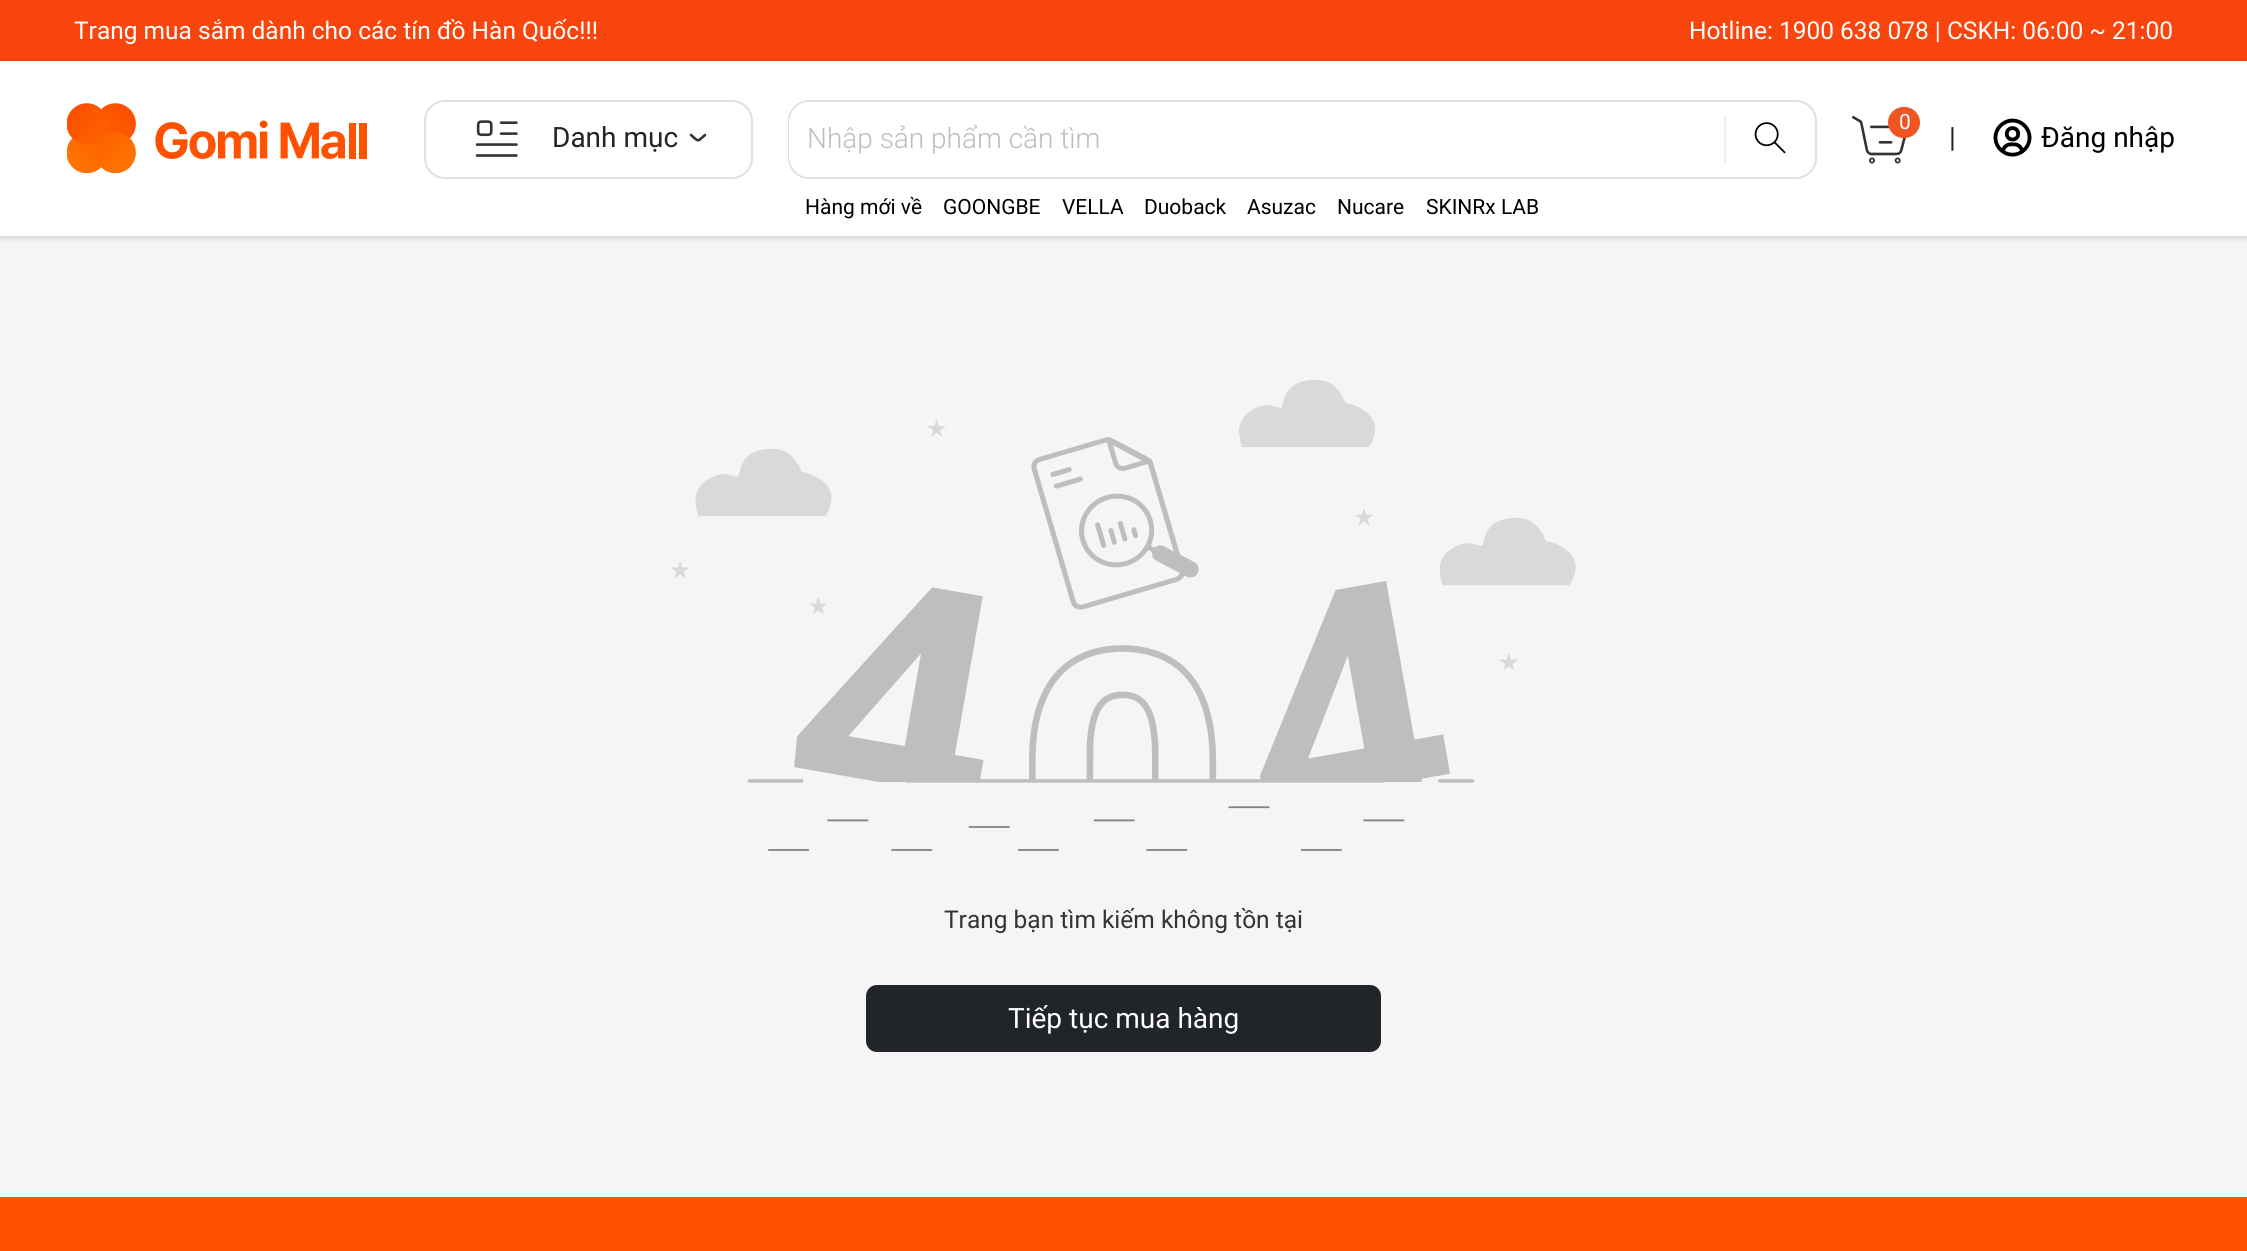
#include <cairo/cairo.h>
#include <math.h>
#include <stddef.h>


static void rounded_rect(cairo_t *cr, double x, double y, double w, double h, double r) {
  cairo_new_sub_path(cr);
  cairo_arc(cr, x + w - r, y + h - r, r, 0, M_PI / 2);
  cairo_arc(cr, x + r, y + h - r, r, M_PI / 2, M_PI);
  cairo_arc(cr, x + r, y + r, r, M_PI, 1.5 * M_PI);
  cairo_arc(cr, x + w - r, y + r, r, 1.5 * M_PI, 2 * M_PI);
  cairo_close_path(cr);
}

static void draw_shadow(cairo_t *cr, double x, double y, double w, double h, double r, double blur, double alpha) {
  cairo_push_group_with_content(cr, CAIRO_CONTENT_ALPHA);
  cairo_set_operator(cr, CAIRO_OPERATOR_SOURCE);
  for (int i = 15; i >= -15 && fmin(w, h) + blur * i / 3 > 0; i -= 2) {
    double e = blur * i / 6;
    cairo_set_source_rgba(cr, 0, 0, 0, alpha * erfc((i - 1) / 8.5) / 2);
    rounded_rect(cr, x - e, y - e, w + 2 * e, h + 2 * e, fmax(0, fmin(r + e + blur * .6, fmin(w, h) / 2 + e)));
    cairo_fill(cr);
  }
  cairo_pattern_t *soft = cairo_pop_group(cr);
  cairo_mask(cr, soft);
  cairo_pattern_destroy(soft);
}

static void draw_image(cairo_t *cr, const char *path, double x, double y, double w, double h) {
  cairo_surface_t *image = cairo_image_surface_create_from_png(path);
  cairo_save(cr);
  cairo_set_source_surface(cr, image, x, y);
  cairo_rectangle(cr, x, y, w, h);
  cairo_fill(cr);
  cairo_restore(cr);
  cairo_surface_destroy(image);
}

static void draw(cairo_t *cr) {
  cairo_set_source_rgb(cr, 245 / 255.0, 245 / 255.0, 245 / 255.0);
  cairo_paint(cr);
  cairo_set_source_rgb(cr, 248 / 255.0, 69 / 255.0, 13 / 255.0);
  cairo_rectangle(cr, 0, 0, 2247, 61);
  cairo_fill(cr);
  cairo_set_source_rgb(cr, 0, 0, 0);
  draw_shadow(cr, 0, 63, 2247, 175, 0, 3.5, 0.15);
  cairo_set_source_rgb(cr, 1, 1, 1);
  cairo_rectangle(cr, 0, 61, 2247, 175);
  cairo_fill(cr);
  draw_image(cr, "images/1.png", 67, 103, 300, 70);
  rounded_rect(cr, 425, 101, 327, 77, 20);
  cairo_set_source_rgb(cr, 224 / 255.0, 224 / 255.0, 224 / 255.0);
  cairo_stroke(cr);
  draw_image(cr, "images/2.png", 475, 120, 43, 37);
  cairo_new_path(cr);
  cairo_move_to(cr, 705, 135);
  cairo_curve_to(cr, 697, 142, 699, 142, 691, 135);
  cairo_set_source_rgb(cr, 51 / 255.0, 51 / 255.0, 51 / 255.0);
  cairo_set_line_width(cr, 2.6);
  cairo_set_line_cap(cr, CAIRO_LINE_CAP_ROUND);
  cairo_set_line_join(cr, CAIRO_LINE_JOIN_ROUND);
  cairo_stroke(cr);
  rounded_rect(cr, 789, 101, 1027, 77, 20);
  cairo_set_source_rgb(cr, 224 / 255.0, 224 / 255.0, 224 / 255.0);
  cairo_set_line_width(cr, 2);
  cairo_set_line_cap(cr, CAIRO_LINE_CAP_BUTT);
  cairo_set_line_join(cr, CAIRO_LINE_JOIN_MITER);
  cairo_stroke(cr);
  cairo_set_source_rgb(cr, 1, 1, 1);
  rounded_rect(cr, 789, 102, 935, 75, 21);
  cairo_fill(cr);
  cairo_set_source_rgb(cr, 238 / 255.0, 238 / 255.0, 238 / 255.0);
  cairo_rectangle(cr, 1724, 116, 2, 47);
  cairo_fill(cr);
  draw_image(cr, "images/3.png", 1754, 122, 32, 32);
  draw_image(cr, "images/4.png", 1852, 116, 54, 48);
  cairo_set_source_rgb(cr, 240 / 255.0, 84 / 255.0, 35 / 255.0);
  rounded_rect(cr, 1888, 107, 32, 31, 15.5);
  cairo_fill(cr);
  draw_image(cr, "images/5.png", 1993, 118, 39, 39);
  draw_image(cr, "images/6.png", 671, 380, 905, 471);
  cairo_set_source_rgb(cr, 33 / 255.0, 37 / 255.0, 41 / 255.0);
  rounded_rect(cr, 867, 986, 513, 65, 10);
  cairo_fill_preserve(cr);
  cairo_stroke(cr);
  cairo_set_source_rgb(cr, 1, 81 / 255.0, 0);
  cairo_rectangle(cr, 0, 1197, 2247, 54);
  cairo_fill(cr);
  cairo_select_font_face(cr, "Roboto", CAIRO_FONT_SLANT_NORMAL, CAIRO_FONT_WEIGHT_NORMAL);
  cairo_set_font_size(cr, 24.5);
  cairo_set_source_rgb(cr, 1, 1, 1);
  cairo_move_to(cr, 74, 39);
  cairo_show_text(cr, "Trang mua sắm dành cho các tín đồ Hàn Quốc!!!");
  cairo_move_to(cr, 1689, 39);
  cairo_show_text(cr, "Hotline: 1900 638 078 | CSKH: 06:00 ~ 21:00");
  cairo_set_font_size(cr, 28);
  cairo_set_source_rgb(cr, 33 / 255.0, 37 / 255.0, 41 / 255.0);
  cairo_move_to(cr, 552, 147);
  cairo_show_text(cr, "Danh mục");
  cairo_select_font_face(cr, "Roboto Light", CAIRO_FONT_SLANT_NORMAL, CAIRO_FONT_WEIGHT_NORMAL);
  cairo_set_source_rgb(cr, 189 / 255.0, 189 / 255.0, 189 / 255.0);
  cairo_move_to(cr, 807, 148);
  cairo_show_text(cr, "Nhập sản phẩm cần tìm");
  cairo_select_font_face(cr, "Roboto", CAIRO_FONT_SLANT_NORMAL, CAIRO_FONT_WEIGHT_NORMAL);
  cairo_set_font_size(cr, 21);
  cairo_set_source_rgb(cr, 1, 1, 1);
  cairo_move_to(cr, 1899, 129);
  cairo_show_text(cr, "0");
  cairo_set_font_size(cr, 28);
  cairo_set_source_rgb(cr, 33 / 255.0, 37 / 255.0, 41 / 255.0);
  cairo_move_to(cr, 1949, 147);
  cairo_show_text(cr, "|");
  cairo_set_source_rgb(cr, 0, 0, 0);
  cairo_move_to(cr, 2041, 147);
  cairo_show_text(cr, "Đăng nhập");
  cairo_set_font_size(cr, 21);
  cairo_move_to(cr, 805, 214);
  cairo_show_text(cr, "Hàng mới về");
  cairo_move_to(cr, 943, 214);
  cairo_show_text(cr, "GOONGBE");
  cairo_move_to(cr, 1062, 214);
  cairo_show_text(cr, "VELLA");
  cairo_move_to(cr, 1144, 214);
  cairo_show_text(cr, "Duoback");
  cairo_move_to(cr, 1247, 214);
  cairo_show_text(cr, "Asuzac");
  cairo_move_to(cr, 1337, 214);
  cairo_show_text(cr, "Nucare");
  cairo_move_to(cr, 1426, 214);
  cairo_show_text(cr, "SKINRx LAB");
  cairo_set_font_size(cr, 24.5);
  cairo_set_source_rgb(cr, 51 / 255.0, 51 / 255.0, 51 / 255.0);
  cairo_move_to(cr, 944, 928);
  cairo_show_text(cr, "Trang bạn tìm kiếm không tồn tại");
  cairo_set_font_size(cr, 28);
  cairo_set_source_rgb(cr, 1, 1, 1);
  cairo_move_to(cr, 1008, 1028);
  cairo_show_text(cr, "Tiếp tục mua hàng");
}

int main(void) {
  cairo_surface_t *surface = cairo_image_surface_create(CAIRO_FORMAT_RGB24, 2247, 1251);
  cairo_t *cr = cairo_create(surface);
  cairo_font_options_t *options = cairo_font_options_create();
  cairo_font_options_set_hint_metrics(options, CAIRO_HINT_METRICS_OFF);
  cairo_font_options_set_hint_style(options, CAIRO_HINT_STYLE_NONE);
  cairo_set_font_options(cr, options);
  cairo_set_miter_limit(cr, 4);
  draw(cr);
  cairo_surface_write_to_png(surface, "out.png");
  cairo_font_options_destroy(options);
  cairo_destroy(cr);
  cairo_surface_destroy(surface);
  return 0;
}
